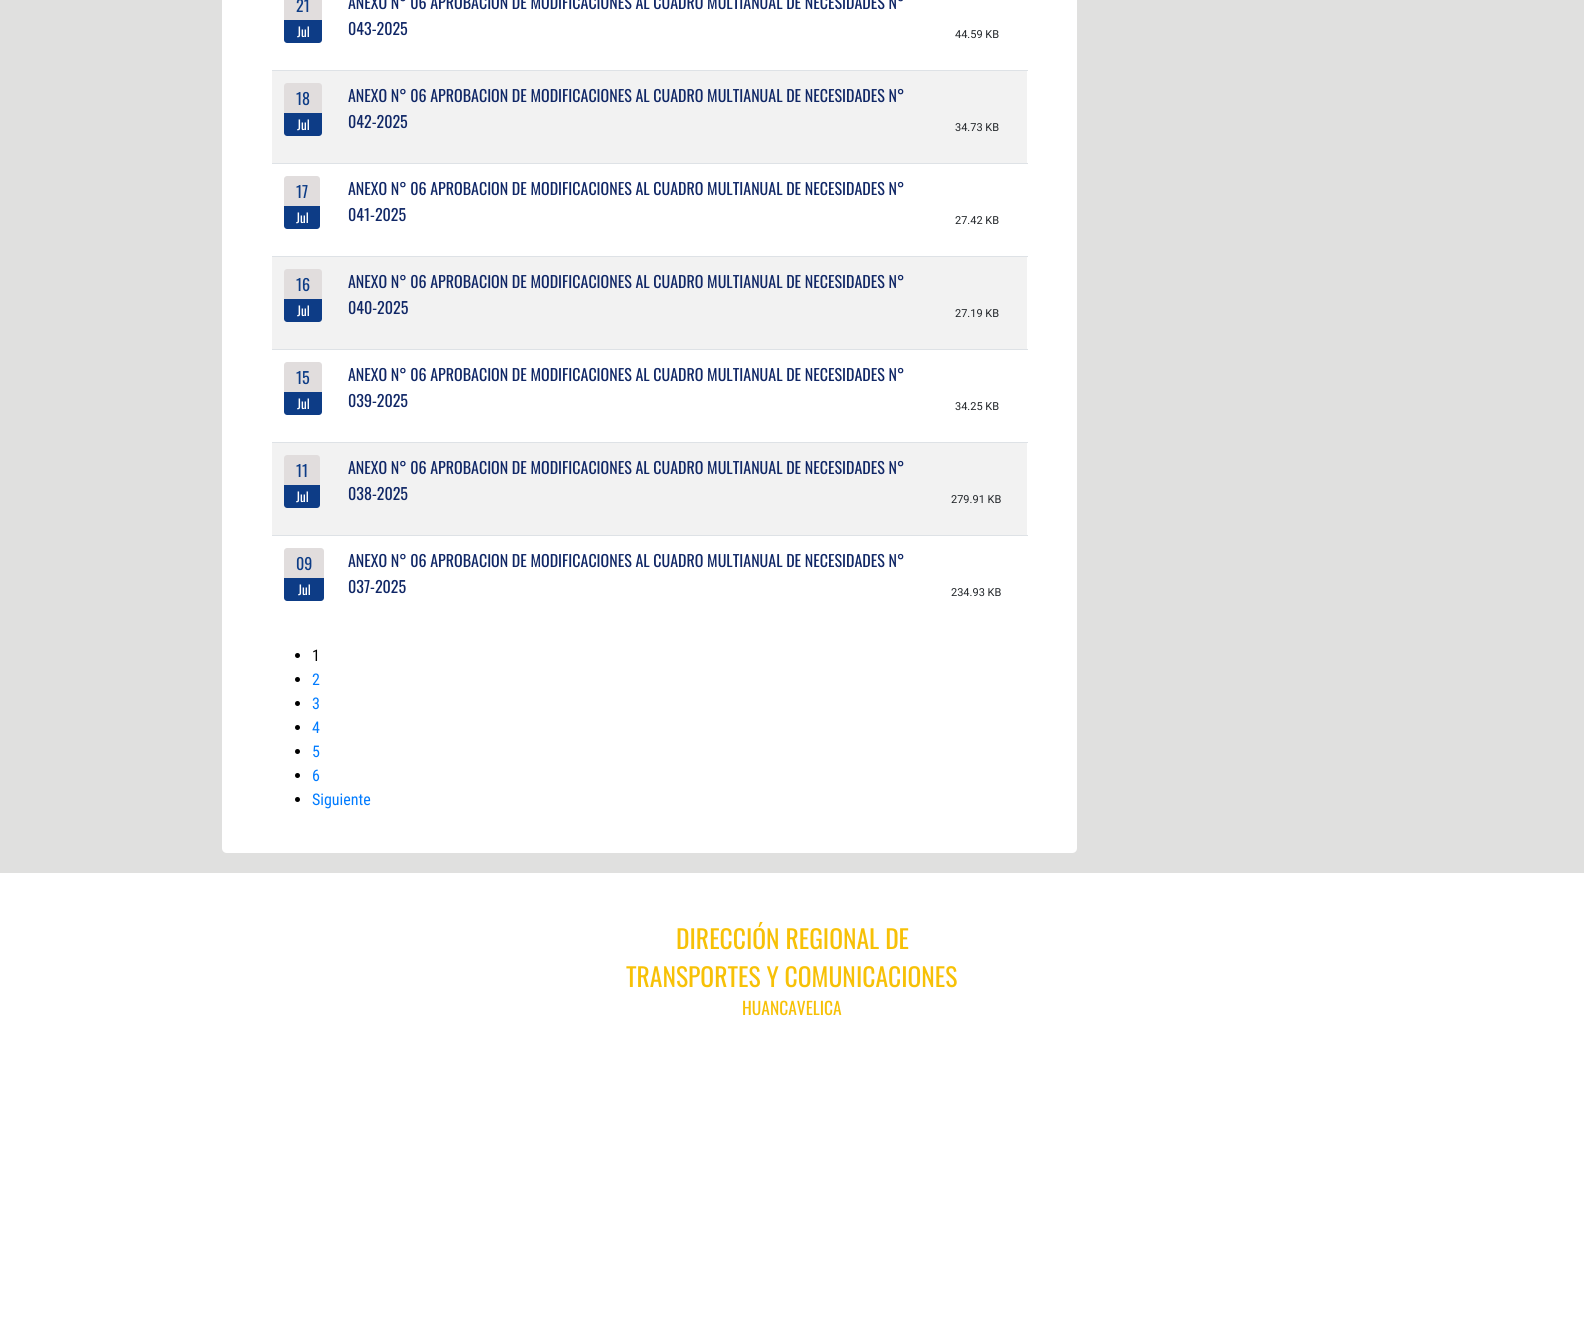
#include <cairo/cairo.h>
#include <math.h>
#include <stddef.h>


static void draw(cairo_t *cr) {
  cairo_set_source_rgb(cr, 1, 1, 1);
  cairo_paint(cr);
  cairo_set_source_rgb(cr, 224 / 255.0, 224 / 255.0, 223 / 255.0);
  cairo_rectangle(cr, 0, 0, 1584, 873);
  cairo_fill(cr);
  cairo_set_source_rgb(cr, 1, 1, 1);
  cairo_new_path(cr);
  cairo_move_to(cr, 222, -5);
  cairo_line_to(cr, 1072, -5);
  cairo_curve_to(cr, 1075, -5, 1077, -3, 1077, 0);
  cairo_line_to(cr, 1077, 848);
  cairo_curve_to(cr, 1077, 851, 1075, 853, 1072, 853);
  cairo_line_to(cr, 227, 853);
  cairo_curve_to(cr, 224, 853, 222, 851, 222, 848);
  cairo_close_path(cr);
  cairo_fill(cr);
  cairo_set_source_rgb(cr, 225 / 255.0, 221 / 255.0, 221 / 255.0);
  cairo_rectangle(cr, 284, 0, 38, 20);
  cairo_fill(cr);
  cairo_set_source_rgb(cr, 13 / 255.0, 60 / 255.0, 134 / 255.0);
  cairo_new_path(cr);
  cairo_move_to(cr, 284, 20);
  cairo_line_to(cr, 322, 20);
  cairo_line_to(cr, 322, 40);
  cairo_curve_to(cr, 322, 41.5, 320.5, 43, 319, 43);
  cairo_line_to(cr, 287, 43);
  cairo_curve_to(cr, 285.5, 43, 284, 41.5, 284, 40);
  cairo_close_path(cr);
  cairo_fill(cr);
  cairo_set_source_rgb(cr, 242 / 255.0, 242 / 255.0, 242 / 255.0);
  cairo_rectangle(cr, 272, 71, 755, 92);
  cairo_fill(cr);
  cairo_set_source_rgb(cr, 225 / 255.0, 221 / 255.0, 221 / 255.0);
  cairo_new_path(cr);
  cairo_move_to(cr, 287, 83);
  cairo_line_to(cr, 319, 83);
  cairo_curve_to(cr, 320.5, 83, 322, 84.5, 322, 86);
  cairo_line_to(cr, 322, 113);
  cairo_line_to(cr, 284, 113);
  cairo_line_to(cr, 284, 86);
  cairo_curve_to(cr, 284, 84.5, 285.5, 83, 287, 83);
  cairo_close_path(cr);
  cairo_fill(cr);
  cairo_set_source_rgb(cr, 13 / 255.0, 60 / 255.0, 134 / 255.0);
  cairo_new_path(cr);
  cairo_move_to(cr, 284, 113);
  cairo_line_to(cr, 322, 113);
  cairo_line_to(cr, 322, 133);
  cairo_curve_to(cr, 322, 134.5, 320.5, 136, 319, 136);
  cairo_line_to(cr, 287, 136);
  cairo_curve_to(cr, 285.5, 136, 284, 134.5, 284, 133);
  cairo_close_path(cr);
  cairo_fill(cr);
  cairo_set_source_rgb(cr, 222 / 255.0, 226 / 255.0, 230 / 255.0);
  cairo_rectangle(cr, 272, 70, 756, 1);
  cairo_fill(cr);
  cairo_set_source_rgb(cr, 225 / 255.0, 221 / 255.0, 221 / 255.0);
  cairo_new_path(cr);
  cairo_move_to(cr, 287, 176);
  cairo_line_to(cr, 317, 176);
  cairo_curve_to(cr, 318.5, 176, 320, 177.5, 320, 179);
  cairo_line_to(cr, 320, 206);
  cairo_line_to(cr, 284, 206);
  cairo_line_to(cr, 284, 179);
  cairo_curve_to(cr, 284, 177.5, 285.5, 176, 287, 176);
  cairo_close_path(cr);
  cairo_fill(cr);
  cairo_set_source_rgb(cr, 13 / 255.0, 60 / 255.0, 134 / 255.0);
  cairo_new_path(cr);
  cairo_move_to(cr, 284, 206);
  cairo_line_to(cr, 320, 206);
  cairo_line_to(cr, 320, 226);
  cairo_curve_to(cr, 320, 227.5, 318.5, 229, 317, 229);
  cairo_line_to(cr, 287, 229);
  cairo_curve_to(cr, 285.5, 229, 284, 227.5, 284, 226);
  cairo_close_path(cr);
  cairo_fill(cr);
  cairo_set_source_rgb(cr, 222 / 255.0, 226 / 255.0, 230 / 255.0);
  cairo_rectangle(cr, 272, 163, 756, 1);
  cairo_fill(cr);
  cairo_set_source_rgb(cr, 242 / 255.0, 242 / 255.0, 242 / 255.0);
  cairo_rectangle(cr, 272, 257, 755, 92);
  cairo_fill(cr);
  cairo_set_source_rgb(cr, 225 / 255.0, 221 / 255.0, 221 / 255.0);
  cairo_new_path(cr);
  cairo_move_to(cr, 287, 269);
  cairo_line_to(cr, 319, 269);
  cairo_curve_to(cr, 320.5, 269, 322, 270.5, 322, 272);
  cairo_line_to(cr, 322, 299);
  cairo_line_to(cr, 284, 299);
  cairo_line_to(cr, 284, 272);
  cairo_curve_to(cr, 284, 270.5, 285.5, 269, 287, 269);
  cairo_close_path(cr);
  cairo_fill(cr);
  cairo_set_source_rgb(cr, 13 / 255.0, 60 / 255.0, 134 / 255.0);
  cairo_new_path(cr);
  cairo_move_to(cr, 284, 299);
  cairo_line_to(cr, 322, 299);
  cairo_line_to(cr, 322, 319);
  cairo_curve_to(cr, 322, 320.5, 320.5, 322, 319, 322);
  cairo_line_to(cr, 287, 322);
  cairo_curve_to(cr, 285.5, 322, 284, 320.5, 284, 319);
  cairo_close_path(cr);
  cairo_fill(cr);
  cairo_set_source_rgb(cr, 222 / 255.0, 226 / 255.0, 230 / 255.0);
  cairo_rectangle(cr, 272, 256, 756, 1);
  cairo_fill(cr);
  cairo_set_source_rgb(cr, 225 / 255.0, 221 / 255.0, 221 / 255.0);
  cairo_new_path(cr);
  cairo_move_to(cr, 287, 362);
  cairo_line_to(cr, 319, 362);
  cairo_curve_to(cr, 320.5, 362, 322, 363.5, 322, 365);
  cairo_line_to(cr, 322, 392);
  cairo_line_to(cr, 284, 392);
  cairo_line_to(cr, 284, 365);
  cairo_curve_to(cr, 284, 363.5, 285.5, 362, 287, 362);
  cairo_close_path(cr);
  cairo_fill(cr);
  cairo_set_source_rgb(cr, 13 / 255.0, 60 / 255.0, 134 / 255.0);
  cairo_new_path(cr);
  cairo_move_to(cr, 284, 392);
  cairo_line_to(cr, 322, 392);
  cairo_line_to(cr, 322, 412);
  cairo_curve_to(cr, 322, 413.5, 320.5, 415, 319, 415);
  cairo_line_to(cr, 287, 415);
  cairo_curve_to(cr, 285.5, 415, 284, 413.5, 284, 412);
  cairo_close_path(cr);
  cairo_fill(cr);
  cairo_set_source_rgb(cr, 222 / 255.0, 226 / 255.0, 230 / 255.0);
  cairo_rectangle(cr, 272, 349, 756, 1);
  cairo_fill(cr);
  cairo_set_source_rgb(cr, 242 / 255.0, 242 / 255.0, 242 / 255.0);
  cairo_rectangle(cr, 272, 443, 755, 92);
  cairo_fill(cr);
  cairo_set_source_rgb(cr, 225 / 255.0, 221 / 255.0, 221 / 255.0);
  cairo_new_path(cr);
  cairo_move_to(cr, 287, 455);
  cairo_line_to(cr, 317, 455);
  cairo_curve_to(cr, 318.5, 455, 320, 456.5, 320, 458);
  cairo_line_to(cr, 320, 485);
  cairo_line_to(cr, 284, 485);
  cairo_line_to(cr, 284, 458);
  cairo_curve_to(cr, 284, 456.5, 285.5, 455, 287, 455);
  cairo_close_path(cr);
  cairo_fill(cr);
  cairo_set_source_rgb(cr, 13 / 255.0, 60 / 255.0, 134 / 255.0);
  cairo_new_path(cr);
  cairo_move_to(cr, 284, 485);
  cairo_line_to(cr, 320, 485);
  cairo_line_to(cr, 320, 505);
  cairo_curve_to(cr, 320, 506.5, 318.5, 508, 317, 508);
  cairo_line_to(cr, 287, 508);
  cairo_curve_to(cr, 285.5, 508, 284, 506.5, 284, 505);
  cairo_close_path(cr);
  cairo_fill(cr);
  cairo_set_source_rgb(cr, 222 / 255.0, 226 / 255.0, 230 / 255.0);
  cairo_rectangle(cr, 272, 442, 756, 1);
  cairo_fill(cr);
  cairo_set_source_rgb(cr, 225 / 255.0, 221 / 255.0, 221 / 255.0);
  cairo_new_path(cr);
  cairo_move_to(cr, 287, 548);
  cairo_line_to(cr, 321, 548);
  cairo_curve_to(cr, 322.5, 548, 324, 549.5, 324, 551);
  cairo_line_to(cr, 324, 578);
  cairo_line_to(cr, 284, 578);
  cairo_line_to(cr, 284, 551);
  cairo_curve_to(cr, 284, 549.5, 285.5, 548, 287, 548);
  cairo_close_path(cr);
  cairo_fill(cr);
  cairo_set_source_rgb(cr, 13 / 255.0, 60 / 255.0, 134 / 255.0);
  cairo_new_path(cr);
  cairo_move_to(cr, 284, 578);
  cairo_line_to(cr, 324, 578);
  cairo_line_to(cr, 324, 598);
  cairo_curve_to(cr, 324, 599.5, 322.5, 601, 321, 601);
  cairo_line_to(cr, 287, 601);
  cairo_curve_to(cr, 285.5, 601, 284, 599.5, 284, 598);
  cairo_close_path(cr);
  cairo_fill(cr);
  cairo_set_source_rgb(cr, 222 / 255.0, 226 / 255.0, 230 / 255.0);
  cairo_rectangle(cr, 272, 535, 756, 1);
  cairo_fill(cr);
  cairo_set_source_rgb(cr, 0, 0, 0);
  cairo_arc(cr, 297.5, 655.5, 2.5, 0, 2 * M_PI);
  cairo_fill(cr);
  cairo_arc(cr, 297.5, 679.5, 2.5, 0, 2 * M_PI);
  cairo_fill(cr);
  cairo_arc(cr, 297.5, 703.5, 2.5, 0, 2 * M_PI);
  cairo_fill(cr);
  cairo_arc(cr, 297.5, 727.5, 2.5, 0, 2 * M_PI);
  cairo_fill(cr);
  cairo_arc(cr, 297.5, 751.5, 2.5, 0, 2 * M_PI);
  cairo_fill(cr);
  cairo_arc(cr, 297.5, 775.5, 2.5, 0, 2 * M_PI);
  cairo_fill(cr);
  cairo_arc(cr, 297.5, 799.5, 2.5, 0, 2 * M_PI);
  cairo_fill(cr);
  cairo_select_font_face(cr, "Oswald", CAIRO_FONT_SLANT_NORMAL, CAIRO_FONT_WEIGHT_NORMAL);
  cairo_set_font_size(cr, 16);
  cairo_set_source_rgb(cr, 13 / 255.0, 60 / 255.0, 134 / 255.0);
  cairo_move_to(cr, 296, 12);
  cairo_show_text(cr, "21");
  cairo_set_font_size(cr, 13);
  cairo_set_source_rgb(cr, 1, 1, 1);
  cairo_move_to(cr, 297, 37);
  cairo_show_text(cr, "Jul");
  cairo_set_font_size(cr, 16);
  cairo_set_source_rgb(cr, 16 / 255.0, 39 / 255.0, 102 / 255.0);
  cairo_move_to(cr, 348, 9);
  cairo_show_text(cr, "ANEXO N° 06 APROBACION DE MODIFICACIONES AL CUADRO MULTIANUAL DE NECESIDADES N°");
  cairo_move_to(cr, 348, 35);
  cairo_show_text(cr, "043-2025");
  cairo_select_font_face(cr, "Roboto", CAIRO_FONT_SLANT_NORMAL, CAIRO_FONT_WEIGHT_NORMAL);
  cairo_set_font_size(cr, 11);
  cairo_set_source_rgb(cr, 33 / 255.0, 37 / 255.0, 41 / 255.0);
  cairo_move_to(cr, 955, 38);
  cairo_show_text(cr, "44.59 KB");
  cairo_select_font_face(cr, "Oswald", CAIRO_FONT_SLANT_NORMAL, CAIRO_FONT_WEIGHT_NORMAL);
  cairo_set_font_size(cr, 16);
  cairo_set_source_rgb(cr, 13 / 255.0, 60 / 255.0, 134 / 255.0);
  cairo_move_to(cr, 296, 105);
  cairo_show_text(cr, "18");
  cairo_set_font_size(cr, 13);
  cairo_set_source_rgb(cr, 1, 1, 1);
  cairo_move_to(cr, 297, 130);
  cairo_show_text(cr, "Jul");
  cairo_set_font_size(cr, 16);
  cairo_set_source_rgb(cr, 16 / 255.0, 39 / 255.0, 102 / 255.0);
  cairo_move_to(cr, 348, 102);
  cairo_show_text(cr, "ANEXO N° 06 APROBACION DE MODIFICACIONES AL CUADRO MULTIANUAL DE NECESIDADES N°");
  cairo_move_to(cr, 348, 128);
  cairo_show_text(cr, "042-2025");
  cairo_select_font_face(cr, "Roboto", CAIRO_FONT_SLANT_NORMAL, CAIRO_FONT_WEIGHT_NORMAL);
  cairo_set_font_size(cr, 11);
  cairo_set_source_rgb(cr, 33 / 255.0, 37 / 255.0, 41 / 255.0);
  cairo_move_to(cr, 955, 131);
  cairo_show_text(cr, "34.73 KB");
  cairo_select_font_face(cr, "Oswald", CAIRO_FONT_SLANT_NORMAL, CAIRO_FONT_WEIGHT_NORMAL);
  cairo_set_font_size(cr, 16);
  cairo_set_source_rgb(cr, 13 / 255.0, 60 / 255.0, 134 / 255.0);
  cairo_move_to(cr, 296, 198);
  cairo_show_text(cr, "17");
  cairo_set_font_size(cr, 13);
  cairo_set_source_rgb(cr, 1, 1, 1);
  cairo_move_to(cr, 296, 223);
  cairo_show_text(cr, "Jul");
  cairo_set_font_size(cr, 16);
  cairo_set_source_rgb(cr, 16 / 255.0, 39 / 255.0, 102 / 255.0);
  cairo_move_to(cr, 348, 195);
  cairo_show_text(cr, "ANEXO N° 06 APROBACION DE MODIFICACIONES AL CUADRO MULTIANUAL DE NECESIDADES N°");
  cairo_move_to(cr, 348, 221);
  cairo_show_text(cr, "041-2025");
  cairo_select_font_face(cr, "Roboto", CAIRO_FONT_SLANT_NORMAL, CAIRO_FONT_WEIGHT_NORMAL);
  cairo_set_font_size(cr, 11);
  cairo_set_source_rgb(cr, 33 / 255.0, 37 / 255.0, 41 / 255.0);
  cairo_move_to(cr, 955, 224);
  cairo_show_text(cr, "27.42 KB");
  cairo_select_font_face(cr, "Oswald", CAIRO_FONT_SLANT_NORMAL, CAIRO_FONT_WEIGHT_NORMAL);
  cairo_set_font_size(cr, 16);
  cairo_set_source_rgb(cr, 13 / 255.0, 60 / 255.0, 134 / 255.0);
  cairo_move_to(cr, 296, 291);
  cairo_show_text(cr, "16");
  cairo_set_font_size(cr, 13);
  cairo_set_source_rgb(cr, 1, 1, 1);
  cairo_move_to(cr, 297, 316);
  cairo_show_text(cr, "Jul");
  cairo_set_font_size(cr, 16);
  cairo_set_source_rgb(cr, 16 / 255.0, 39 / 255.0, 102 / 255.0);
  cairo_move_to(cr, 348, 288);
  cairo_show_text(cr, "ANEXO N° 06 APROBACION DE MODIFICACIONES AL CUADRO MULTIANUAL DE NECESIDADES N°");
  cairo_move_to(cr, 348, 314);
  cairo_show_text(cr, "040-2025");
  cairo_select_font_face(cr, "Roboto", CAIRO_FONT_SLANT_NORMAL, CAIRO_FONT_WEIGHT_NORMAL);
  cairo_set_font_size(cr, 11);
  cairo_set_source_rgb(cr, 33 / 255.0, 37 / 255.0, 41 / 255.0);
  cairo_move_to(cr, 955, 317);
  cairo_show_text(cr, "27.19 KB");
  cairo_select_font_face(cr, "Oswald", CAIRO_FONT_SLANT_NORMAL, CAIRO_FONT_WEIGHT_NORMAL);
  cairo_set_font_size(cr, 16);
  cairo_set_source_rgb(cr, 13 / 255.0, 60 / 255.0, 134 / 255.0);
  cairo_move_to(cr, 296, 384);
  cairo_show_text(cr, "15");
  cairo_set_font_size(cr, 13);
  cairo_set_source_rgb(cr, 1, 1, 1);
  cairo_move_to(cr, 297, 409);
  cairo_show_text(cr, "Jul");
  cairo_set_font_size(cr, 16);
  cairo_set_source_rgb(cr, 16 / 255.0, 39 / 255.0, 102 / 255.0);
  cairo_move_to(cr, 348, 381);
  cairo_show_text(cr, "ANEXO N° 06 APROBACION DE MODIFICACIONES AL CUADRO MULTIANUAL DE NECESIDADES N°");
  cairo_move_to(cr, 348, 407);
  cairo_show_text(cr, "039-2025");
  cairo_select_font_face(cr, "Roboto", CAIRO_FONT_SLANT_NORMAL, CAIRO_FONT_WEIGHT_NORMAL);
  cairo_set_font_size(cr, 11);
  cairo_set_source_rgb(cr, 33 / 255.0, 37 / 255.0, 41 / 255.0);
  cairo_move_to(cr, 955, 410);
  cairo_show_text(cr, "34.25 KB");
  cairo_select_font_face(cr, "Oswald", CAIRO_FONT_SLANT_NORMAL, CAIRO_FONT_WEIGHT_NORMAL);
  cairo_set_font_size(cr, 16);
  cairo_set_source_rgb(cr, 13 / 255.0, 60 / 255.0, 134 / 255.0);
  cairo_move_to(cr, 296, 477);
  cairo_show_text(cr, "11");
  cairo_set_font_size(cr, 13);
  cairo_set_source_rgb(cr, 1, 1, 1);
  cairo_move_to(cr, 296, 502);
  cairo_show_text(cr, "Jul");
  cairo_set_font_size(cr, 16);
  cairo_set_source_rgb(cr, 16 / 255.0, 39 / 255.0, 102 / 255.0);
  cairo_move_to(cr, 348, 474);
  cairo_show_text(cr, "ANEXO N° 06 APROBACION DE MODIFICACIONES AL CUADRO MULTIANUAL DE NECESIDADES N°");
  cairo_move_to(cr, 348, 500);
  cairo_show_text(cr, "038-2025");
  cairo_select_font_face(cr, "Roboto", CAIRO_FONT_SLANT_NORMAL, CAIRO_FONT_WEIGHT_NORMAL);
  cairo_set_font_size(cr, 11);
  cairo_set_source_rgb(cr, 33 / 255.0, 37 / 255.0, 41 / 255.0);
  cairo_move_to(cr, 951, 503);
  cairo_show_text(cr, "279.91 KB");
  cairo_select_font_face(cr, "Oswald", CAIRO_FONT_SLANT_NORMAL, CAIRO_FONT_WEIGHT_NORMAL);
  cairo_set_font_size(cr, 16);
  cairo_set_source_rgb(cr, 13 / 255.0, 60 / 255.0, 134 / 255.0);
  cairo_move_to(cr, 296, 570);
  cairo_show_text(cr, "09");
  cairo_set_font_size(cr, 13);
  cairo_set_source_rgb(cr, 1, 1, 1);
  cairo_move_to(cr, 298, 595);
  cairo_show_text(cr, "Jul");
  cairo_set_font_size(cr, 16);
  cairo_set_source_rgb(cr, 16 / 255.0, 39 / 255.0, 102 / 255.0);
  cairo_move_to(cr, 348, 567);
  cairo_show_text(cr, "ANEXO N° 06 APROBACION DE MODIFICACIONES AL CUADRO MULTIANUAL DE NECESIDADES N°");
  cairo_move_to(cr, 348, 593);
  cairo_show_text(cr, "037-2025");
  cairo_select_font_face(cr, "Roboto", CAIRO_FONT_SLANT_NORMAL, CAIRO_FONT_WEIGHT_NORMAL);
  cairo_set_font_size(cr, 11);
  cairo_set_source_rgb(cr, 33 / 255.0, 37 / 255.0, 41 / 255.0);
  cairo_move_to(cr, 951, 596);
  cairo_show_text(cr, "234.93 KB");
  cairo_select_font_face(cr, "Roboto Condensed", CAIRO_FONT_SLANT_NORMAL, CAIRO_FONT_WEIGHT_NORMAL);
  cairo_set_font_size(cr, 16);
  cairo_set_source_rgb(cr, 0, 0, 0);
  cairo_move_to(cr, 312, 661);
  cairo_show_text(cr, "1");
  cairo_set_source_rgb(cr, 0, 123 / 255.0, 1);
  cairo_move_to(cr, 312, 685);
  cairo_show_text(cr, "2");
  cairo_move_to(cr, 312, 709);
  cairo_show_text(cr, "3");
  cairo_move_to(cr, 312, 733);
  cairo_show_text(cr, "4");
  cairo_move_to(cr, 312, 757);
  cairo_show_text(cr, "5");
  cairo_move_to(cr, 312, 781);
  cairo_show_text(cr, "6");
  cairo_move_to(cr, 312, 805);
  cairo_show_text(cr, "Siguiente");
  cairo_select_font_face(cr, "Oswald", CAIRO_FONT_SLANT_NORMAL, CAIRO_FONT_WEIGHT_NORMAL);
  cairo_set_font_size(cr, 25.6);
  cairo_set_source_rgb(cr, 247 / 255.0, 193 / 255.0, 7 / 255.0);
  cairo_move_to(cr, 676, 949);
  cairo_show_text(cr, "DIRECCIÓN REGIONAL DE");
  cairo_move_to(cr, 626, 987);
  cairo_show_text(cr, "TRANSPORTES Y COMUNICACIONES");
  cairo_set_font_size(cr, 17.5);
  cairo_move_to(cr, 742, 1015);
  cairo_show_text(cr, "HUANCAVELICA");
}

int main(void) {
  cairo_surface_t *surface = cairo_image_surface_create(CAIRO_FORMAT_RGB24, 1584, 1338);
  cairo_t *cr = cairo_create(surface);
  cairo_font_options_t *options = cairo_font_options_create();
  cairo_font_options_set_hint_metrics(options, CAIRO_HINT_METRICS_OFF);
  cairo_font_options_set_hint_style(options, CAIRO_HINT_STYLE_NONE);
  cairo_set_font_options(cr, options);
  cairo_set_miter_limit(cr, 4);
  draw(cr);
  cairo_surface_write_to_png(surface, "out.png");
  cairo_font_options_destroy(options);
  cairo_destroy(cr);
  cairo_surface_destroy(surface);
  return 0;
}
